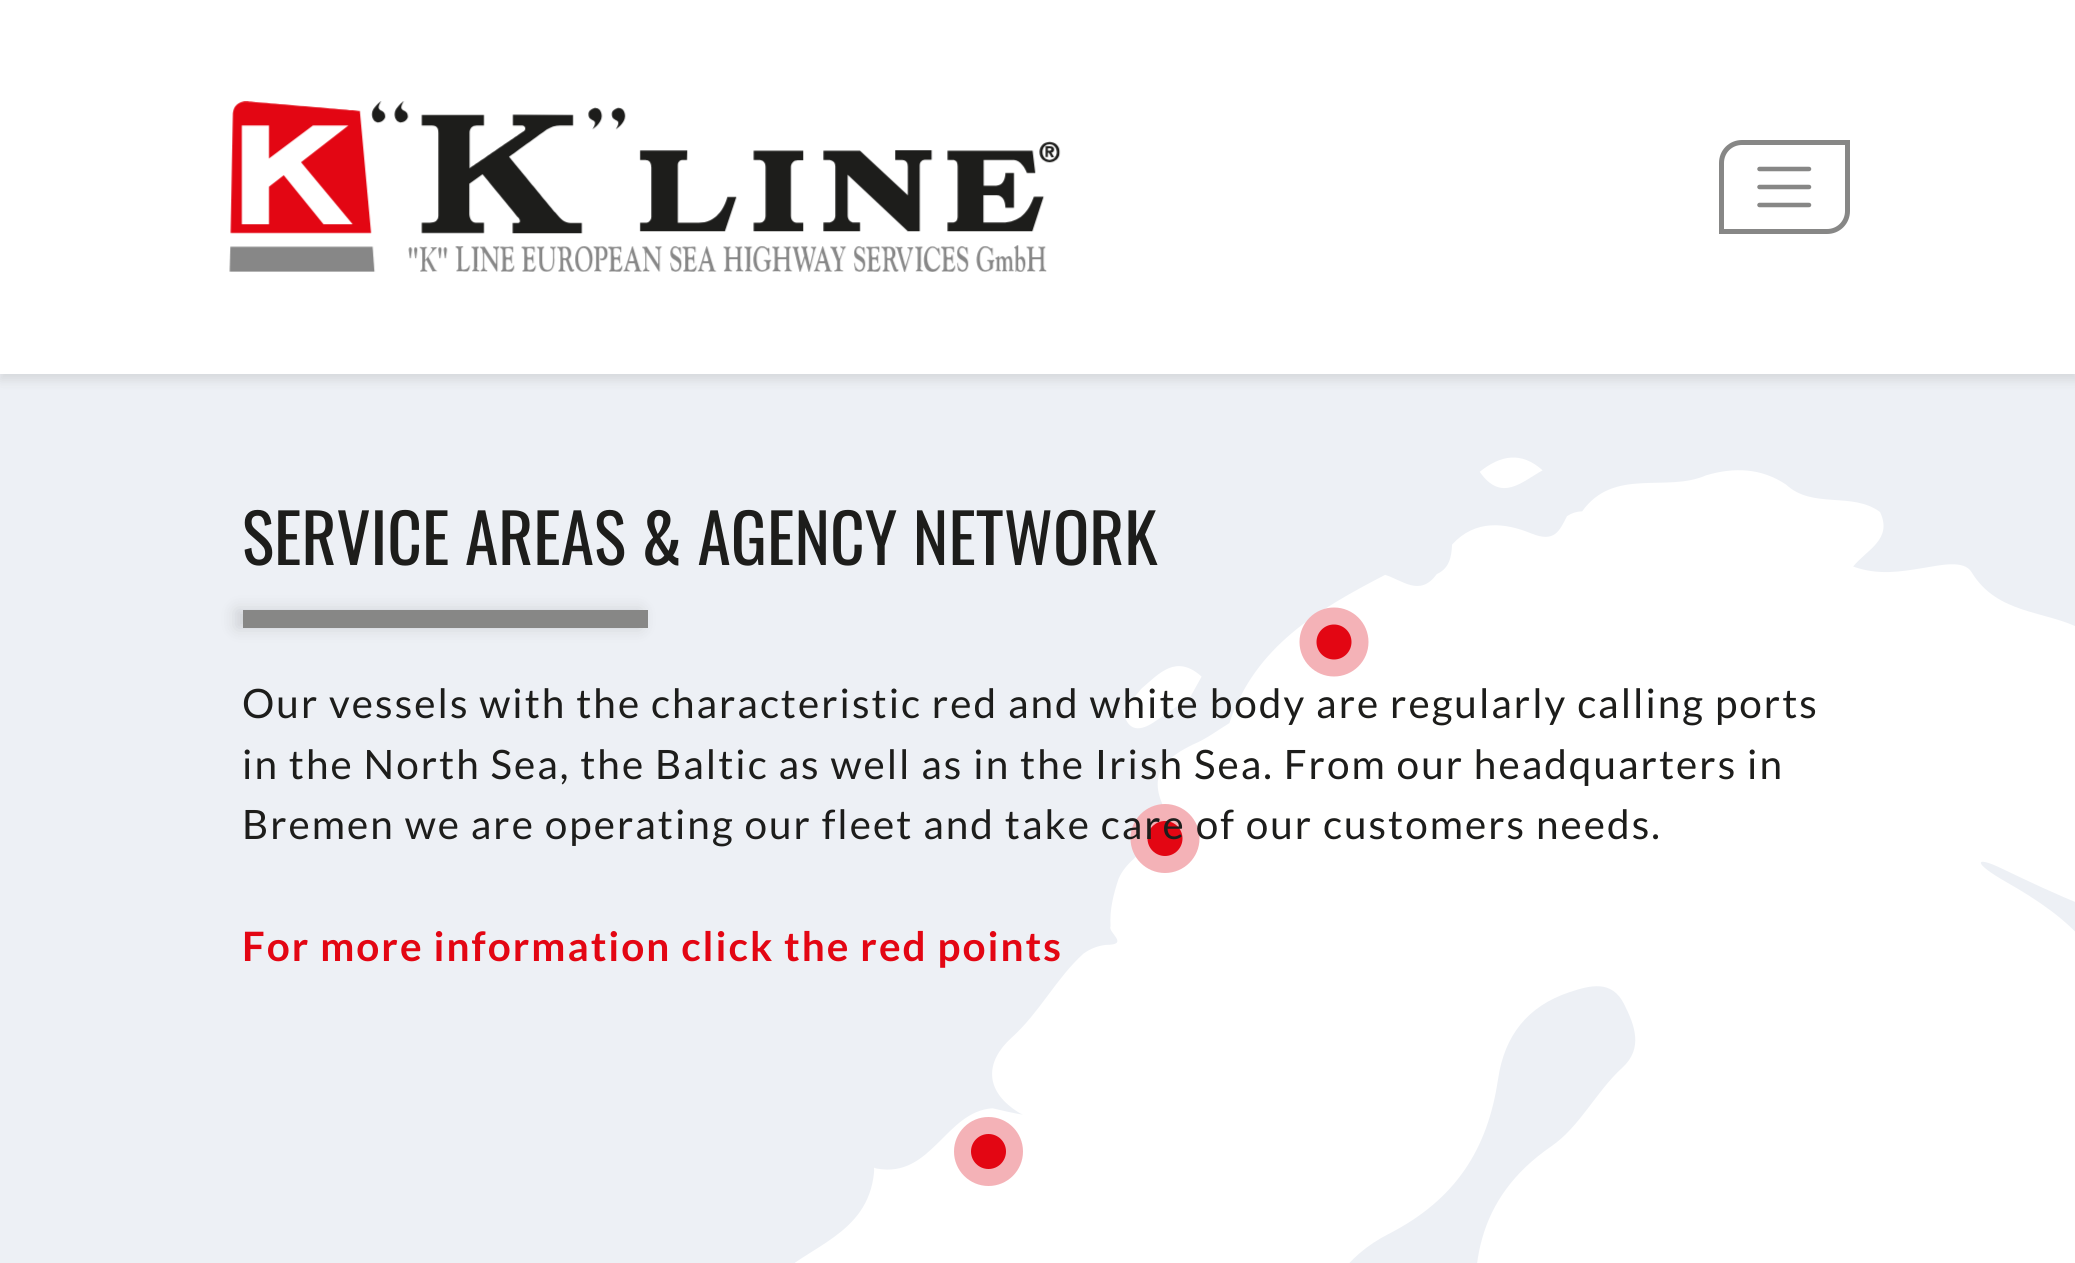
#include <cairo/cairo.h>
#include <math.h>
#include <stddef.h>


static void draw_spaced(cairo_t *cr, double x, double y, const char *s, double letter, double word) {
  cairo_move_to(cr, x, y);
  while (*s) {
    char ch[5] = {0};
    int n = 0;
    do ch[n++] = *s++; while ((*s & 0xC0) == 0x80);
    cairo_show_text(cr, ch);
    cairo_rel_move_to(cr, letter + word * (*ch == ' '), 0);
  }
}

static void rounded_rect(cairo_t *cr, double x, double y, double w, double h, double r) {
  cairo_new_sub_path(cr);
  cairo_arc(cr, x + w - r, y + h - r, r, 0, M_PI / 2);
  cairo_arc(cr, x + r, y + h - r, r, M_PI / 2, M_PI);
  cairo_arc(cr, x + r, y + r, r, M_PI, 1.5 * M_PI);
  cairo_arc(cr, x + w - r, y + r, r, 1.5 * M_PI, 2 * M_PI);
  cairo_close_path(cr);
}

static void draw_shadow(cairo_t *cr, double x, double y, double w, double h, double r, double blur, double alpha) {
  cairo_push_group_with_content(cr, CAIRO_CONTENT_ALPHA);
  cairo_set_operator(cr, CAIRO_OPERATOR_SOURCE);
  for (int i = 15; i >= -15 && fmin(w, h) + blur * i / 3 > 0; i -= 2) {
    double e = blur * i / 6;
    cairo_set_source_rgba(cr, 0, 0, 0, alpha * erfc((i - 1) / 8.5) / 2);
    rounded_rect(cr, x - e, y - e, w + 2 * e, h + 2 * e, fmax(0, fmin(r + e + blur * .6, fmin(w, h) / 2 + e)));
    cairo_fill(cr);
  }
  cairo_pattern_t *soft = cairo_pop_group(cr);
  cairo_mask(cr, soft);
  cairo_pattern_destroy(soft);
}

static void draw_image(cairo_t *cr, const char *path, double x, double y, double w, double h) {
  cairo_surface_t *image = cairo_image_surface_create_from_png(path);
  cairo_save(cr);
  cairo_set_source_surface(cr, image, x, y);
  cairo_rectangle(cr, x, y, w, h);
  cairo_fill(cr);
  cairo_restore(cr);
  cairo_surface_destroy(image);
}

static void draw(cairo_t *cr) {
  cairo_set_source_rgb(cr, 237 / 255.0, 240 / 255.0, 245 / 255.0);
  cairo_paint(cr);
  cairo_set_source_rgb(cr, 157 / 255.0, 159 / 255.0, 159 / 255.0);
  draw_shadow(cr, 0, 7, 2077, 373, 0, 5.5, 0.3);
  cairo_set_source_rgb(cr, 1, 1, 1);
  cairo_rectangle(cr, 0, 0, 2075, 374);
  cairo_fill(cr);
  draw_image(cr, "images/1.png", 229, 101, 832, 171);
  cairo_new_path(cr);
  cairo_move_to(cr, 1742, 142.5);
  cairo_line_to(cr, 1847.5, 142.5);
  cairo_line_to(cr, 1847.5, 211);
  cairo_curve_to(cr, 1847.5, 222.5, 1838.5, 231.5, 1827, 231.5);
  cairo_line_to(cr, 1721.5, 231.5);
  cairo_line_to(cr, 1721.5, 163);
  cairo_curve_to(cr, 1721.5, 151.5, 1730.5, 142.5, 1742, 142.5);
  cairo_close_path(cr);
  cairo_set_source_rgb(cr, 135 / 255.0, 135 / 255.0, 134 / 255.0);
  cairo_set_line_width(cr, 5);
  cairo_stroke(cr);
  cairo_new_path(cr);
  cairo_move_to(cr, 1759.5, 169);
  cairo_line_to(cr, 1809, 169);
  cairo_move_to(cr, 1759.5, 187);
  cairo_line_to(cr, 1809, 187);
  cairo_move_to(cr, 1759.5, 205);
  cairo_line_to(cr, 1809, 205);
  cairo_set_line_width(cr, 4.5);
  cairo_set_line_cap(cr, CAIRO_LINE_CAP_ROUND);
  cairo_stroke(cr);
  draw_image(cr, "images/2.png", 795, 457, 1280, 806);
  cairo_set_source_rgb(cr, 29 / 255.0, 29 / 255.0, 27 / 255.0);
  draw_shadow(cr, 236, 610, 405, 18, 0, 8, 0.15);
  cairo_set_source_rgb(cr, 135 / 255.0, 135 / 255.0, 134 / 255.0);
  cairo_rectangle(cr, 243, 610, 405, 18);
  cairo_fill(cr);
  cairo_select_font_face(cr, "Oswald", CAIRO_FONT_SLANT_NORMAL, CAIRO_FONT_WEIGHT_NORMAL);
  cairo_set_font_size(cr, 67.5);
  cairo_set_source_rgb(cr, 29 / 255.0, 29 / 255.0, 27 / 255.0);
  cairo_move_to(cr, 242, 565);
  cairo_show_text(cr, "SERVICE AREAS & AGENCY NETWORK");
  cairo_select_font_face(cr, "Lato", CAIRO_FONT_SLANT_NORMAL, CAIRO_FONT_WEIGHT_NORMAL);
  cairo_set_font_size(cr, 40.5);
  draw_spaced(cr, 242, 718, "Our vessels with the characteristic red and white body are regularly calling ports", 2.02, 0);
  draw_spaced(cr, 242, 779, "in the North Sea, the Baltic as well as in the Irish Sea. From our headquarters in", 2.02, 0);
  draw_spaced(cr, 242, 839, "Bremen we are operating our fleet and take care of our customers needs.", 2.02, 0);
  cairo_select_font_face(cr, "Lato", CAIRO_FONT_SLANT_NORMAL, CAIRO_FONT_WEIGHT_BOLD);
  cairo_set_source_rgb(cr, 227 / 255.0, 6 / 255.0, 19 / 255.0);
  draw_spaced(cr, 242, 961, "For more information click the red points", 2.02, 0);
}

int main(void) {
  cairo_surface_t *surface = cairo_image_surface_create(CAIRO_FORMAT_RGB24, 2075, 1263);
  cairo_t *cr = cairo_create(surface);
  cairo_font_options_t *options = cairo_font_options_create();
  cairo_font_options_set_hint_metrics(options, CAIRO_HINT_METRICS_OFF);
  cairo_font_options_set_hint_style(options, CAIRO_HINT_STYLE_NONE);
  cairo_set_font_options(cr, options);
  cairo_set_miter_limit(cr, 4);
  draw(cr);
  cairo_surface_write_to_png(surface, "out.png");
  cairo_font_options_destroy(options);
  cairo_destroy(cr);
  cairo_surface_destroy(surface);
  return 0;
}
